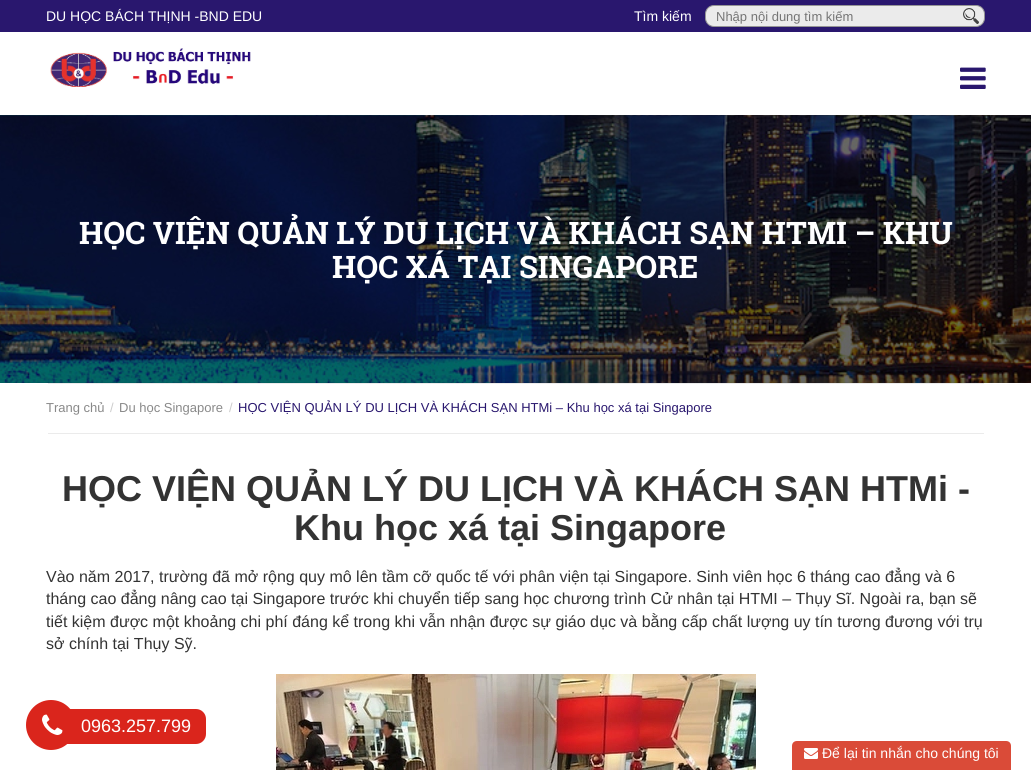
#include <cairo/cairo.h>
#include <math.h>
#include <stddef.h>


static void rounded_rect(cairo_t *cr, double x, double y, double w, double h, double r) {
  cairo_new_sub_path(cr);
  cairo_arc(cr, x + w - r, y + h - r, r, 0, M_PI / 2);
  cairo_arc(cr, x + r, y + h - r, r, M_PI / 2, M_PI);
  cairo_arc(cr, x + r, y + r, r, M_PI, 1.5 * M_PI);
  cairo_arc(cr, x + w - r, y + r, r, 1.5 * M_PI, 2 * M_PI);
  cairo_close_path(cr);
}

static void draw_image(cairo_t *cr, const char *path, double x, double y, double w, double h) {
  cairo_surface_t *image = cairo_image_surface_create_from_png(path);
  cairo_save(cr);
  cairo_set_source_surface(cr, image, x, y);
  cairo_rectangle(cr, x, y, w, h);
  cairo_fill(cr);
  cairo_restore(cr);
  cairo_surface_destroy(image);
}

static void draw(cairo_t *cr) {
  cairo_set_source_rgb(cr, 1, 1, 1);
  cairo_paint(cr);
  cairo_set_source_rgb(cr, 41 / 255.0, 23 / 255.0, 110 / 255.0);
  cairo_rectangle(cr, 0, 0, 1031, 32);
  cairo_fill(cr);
  cairo_set_source_rgb(cr, 235 / 255.0, 235 / 255.0, 235 / 255.0);
  rounded_rect(cr, 705.5, 5.5, 279, 21, 8.5);
  cairo_fill_preserve(cr);
  cairo_set_source_rgb(cr, 149 / 255.0, 149 / 255.0, 149 / 255.0);
  cairo_set_line_width(cr, 1);
  cairo_stroke(cr);
  draw_image(cr, "images/1.png", 963, 8, 16, 16);
  draw_image(cr, "images/2.png", 50, 48, 201, 39);
  draw_image(cr, "images/3.png", 960, 67, 26, 22);
  draw_image(cr, "images/4.png", 0, 115, 1031, 268);
  cairo_set_source_rgb(cr, 235 / 255.0, 235 / 255.0, 235 / 255.0);
  cairo_rectangle(cr, 48, 383, 936, 1);
  cairo_fill(cr);
  cairo_rectangle(cr, 48, 433, 936, 1);
  cairo_fill(cr);
  draw_image(cr, "images/5.png", 276, 674, 480, 96);
  cairo_set_source_rgb(cr, 218 / 255.0, 37 / 255.0, 28 / 255.0);
  cairo_arc(cr, 51, 725, 25, 0, 2 * M_PI);
  cairo_fill(cr);
  draw_image(cr, "images/6.png", 42, 714, 21, 21);
  cairo_new_path(cr);
  cairo_move_to(cr, 66, 709);
  cairo_line_to(cr, 196, 709);
  cairo_curve_to(cr, 201.5, 709, 206, 713.5, 206, 719);
  cairo_line_to(cr, 206, 734);
  cairo_curve_to(cr, 206, 739.5, 201.5, 744, 196, 744);
  cairo_line_to(cr, 66, 744);
  cairo_close_path(cr);
  cairo_fill(cr);
  cairo_set_source_rgb(cr, 218 / 255.0, 75 / 255.0, 56 / 255.0);
  cairo_new_path(cr);
  cairo_move_to(cr, 797, 741);
  cairo_line_to(cr, 1006, 741);
  cairo_curve_to(cr, 1009, 741, 1011, 743, 1011, 746);
  cairo_line_to(cr, 1011, 770);
  cairo_line_to(cr, 792, 770);
  cairo_line_to(cr, 792, 746);
  cairo_curve_to(cr, 792, 743, 794, 741, 797, 741);
  cairo_close_path(cr);
  cairo_fill(cr);
  draw_image(cr, "images/7.png", 804, 748, 14, 11);
  cairo_select_font_face(cr, "Liberation Sans", CAIRO_FONT_SLANT_NORMAL, CAIRO_FONT_WEIGHT_NORMAL);
  cairo_set_font_size(cr, 14);
  cairo_set_source_rgb(cr, 1, 1, 1);
  cairo_move_to(cr, 46, 21);
  cairo_show_text(cr, "DU HỌC BÁCH THỊNH -BND EDU");
  cairo_move_to(cr, 634, 21);
  cairo_show_text(cr, "Tìm kiếm");
  cairo_set_font_size(cr, 13);
  cairo_set_source_rgb(cr, 117 / 255.0, 117 / 255.0, 117 / 255.0);
  cairo_move_to(cr, 716, 21);
  cairo_show_text(cr, "Nhập nội dung tìm kiếm");
  cairo_select_font_face(cr, "Roboto Slab", CAIRO_FONT_SLANT_NORMAL, CAIRO_FONT_WEIGHT_BOLD);
  cairo_set_font_size(cr, 31);
  cairo_set_source_rgb(cr, 1, 1, 1);
  cairo_move_to(cr, 79, 244);
  cairo_show_text(cr, "HỌC VIỆN QUẢN LÝ DU LỊCH VÀ KHÁCH SẠN HTMI – KHU");
  cairo_move_to(cr, 332, 278);
  cairo_show_text(cr, "HỌC XÁ TẠI SINGAPORE");
  cairo_select_font_face(cr, "Liberation Sans", CAIRO_FONT_SLANT_NORMAL, CAIRO_FONT_WEIGHT_NORMAL);
  cairo_set_font_size(cr, 13);
  cairo_set_source_rgb(cr, 137 / 255.0, 137 / 255.0, 137 / 255.0);
  cairo_move_to(cr, 46, 412);
  cairo_show_text(cr, "Trang chủ");
  cairo_set_source_rgb(cr, 204 / 255.0, 204 / 255.0, 204 / 255.0);
  cairo_move_to(cr, 110, 412);
  cairo_show_text(cr, "/");
  cairo_set_source_rgb(cr, 137 / 255.0, 137 / 255.0, 137 / 255.0);
  cairo_move_to(cr, 119, 412);
  cairo_show_text(cr, "Du học Singapore");
  cairo_set_source_rgb(cr, 204 / 255.0, 204 / 255.0, 204 / 255.0);
  cairo_move_to(cr, 229, 412);
  cairo_show_text(cr, "/");
  cairo_set_source_rgb(cr, 41 / 255.0, 23 / 255.0, 110 / 255.0);
  cairo_move_to(cr, 238, 412);
  cairo_show_text(cr, "HỌC VIỆN QUẢN LÝ DU LỊCH VÀ KHÁCH SẠN HTMi – Khu học xá tại Singapore");
  cairo_select_font_face(cr, "Liberation Sans", CAIRO_FONT_SLANT_NORMAL, CAIRO_FONT_WEIGHT_BOLD);
  cairo_set_font_size(cr, 36);
  cairo_set_source_rgb(cr, 51 / 255.0, 51 / 255.0, 51 / 255.0);
  cairo_move_to(cr, 62, 501);
  cairo_show_text(cr, "HỌC VIỆN QUẢN LÝ DU LỊCH VÀ KHÁCH SẠN HTMi -");
  cairo_move_to(cr, 294, 540);
  cairo_show_text(cr, "Khu học xá tại Singapore");
  cairo_select_font_face(cr, "Liberation Sans", CAIRO_FONT_SLANT_NORMAL, CAIRO_FONT_WEIGHT_NORMAL);
  cairo_set_font_size(cr, 16);
  cairo_move_to(cr, 46, 582);
  cairo_show_text(cr, "Vào năm 2017, trường đã mở rộng quy mô lên tầm cỡ quốc tế với phân viện tại Singapore. Sinh viên học 6 tháng cao đẳng và 6");
  cairo_move_to(cr, 46, 604);
  cairo_show_text(cr, "tháng cao đẳng nâng cao tại Singapore trước khi chuyển tiếp sang học chương trình Cử nhân tại HTMI – Thụy Sĩ. Ngoài ra, bạn sẽ");
  cairo_move_to(cr, 46, 627);
  cairo_show_text(cr, "tiết kiệm được một khoảng chi phí đáng kể trong khi vẫn nhận được sự giáo dục và bằng cấp chất lượng uy tín tương đương với trụ");
  cairo_move_to(cr, 46, 649);
  cairo_show_text(cr, "sở chính tại Thụy Sỹ.");
  cairo_set_font_size(cr, 18);
  cairo_set_source_rgb(cr, 1, 1, 1);
  cairo_move_to(cr, 81, 732);
  cairo_show_text(cr, "0963.257.799");
  cairo_set_font_size(cr, 14);
  cairo_move_to(cr, 822, 758);
  cairo_show_text(cr, "Để lại tin nhắn cho chúng tôi");
}

int main(void) {
  cairo_surface_t *surface = cairo_image_surface_create(CAIRO_FORMAT_RGB24, 1031, 770);
  cairo_t *cr = cairo_create(surface);
  cairo_font_options_t *options = cairo_font_options_create();
  cairo_font_options_set_hint_metrics(options, CAIRO_HINT_METRICS_OFF);
  cairo_font_options_set_hint_style(options, CAIRO_HINT_STYLE_NONE);
  cairo_set_font_options(cr, options);
  cairo_set_miter_limit(cr, 4);
  draw(cr);
  cairo_surface_write_to_png(surface, "out.png");
  cairo_font_options_destroy(options);
  cairo_destroy(cr);
  cairo_surface_destroy(surface);
  return 0;
}
